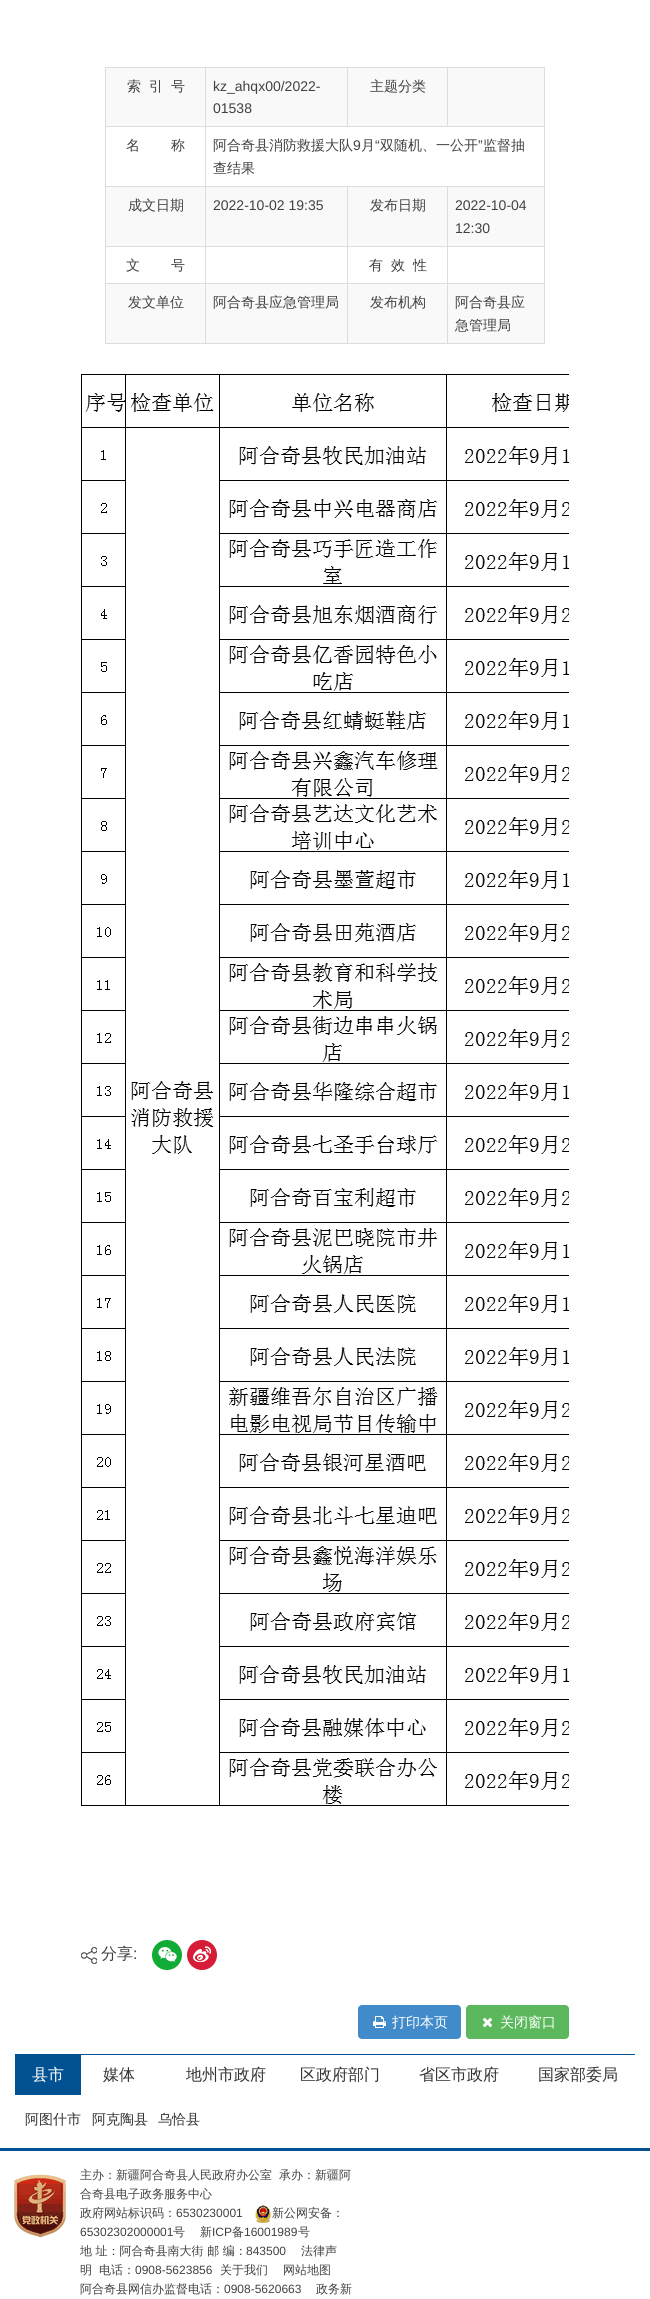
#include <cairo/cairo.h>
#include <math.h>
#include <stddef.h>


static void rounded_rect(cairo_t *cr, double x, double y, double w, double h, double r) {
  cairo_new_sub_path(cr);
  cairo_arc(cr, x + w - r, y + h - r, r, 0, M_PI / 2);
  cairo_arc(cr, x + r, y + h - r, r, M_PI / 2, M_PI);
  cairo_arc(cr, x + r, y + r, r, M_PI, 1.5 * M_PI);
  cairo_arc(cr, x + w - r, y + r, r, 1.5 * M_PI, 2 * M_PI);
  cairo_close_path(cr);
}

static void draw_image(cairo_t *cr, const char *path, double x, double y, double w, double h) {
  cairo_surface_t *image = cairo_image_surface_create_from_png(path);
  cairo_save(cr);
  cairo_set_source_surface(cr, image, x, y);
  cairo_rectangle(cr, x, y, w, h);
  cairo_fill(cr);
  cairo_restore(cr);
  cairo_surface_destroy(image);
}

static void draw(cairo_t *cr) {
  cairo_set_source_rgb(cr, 1, 1, 1);
  cairo_paint(cr);
  cairo_set_source_rgb(cr, 221 / 255.0, 221 / 255.0, 221 / 255.0);
  cairo_rectangle(cr, 105, 67, 440, 1);
  cairo_fill(cr);
  cairo_rectangle(cr, 544, 67, 1, 277);
  cairo_fill(cr);
  cairo_rectangle(cr, 105, 343, 440, 1);
  cairo_fill(cr);
  cairo_set_source_rgb(cr, 249 / 255.0, 249 / 255.0, 249 / 255.0);
  cairo_rectangle(cr, 106, 68, 99, 58);
  cairo_fill(cr);
  cairo_set_source_rgb(cr, 221 / 255.0, 221 / 255.0, 221 / 255.0);
  cairo_rectangle(cr, 105, 68, 1, 58);
  cairo_fill(cr);
  cairo_set_source_rgb(cr, 249 / 255.0, 249 / 255.0, 249 / 255.0);
  cairo_rectangle(cr, 206, 68, 141, 58);
  cairo_fill(cr);
  cairo_set_source_rgb(cr, 221 / 255.0, 221 / 255.0, 221 / 255.0);
  cairo_rectangle(cr, 205, 68, 1, 58);
  cairo_fill(cr);
  cairo_set_source_rgb(cr, 249 / 255.0, 249 / 255.0, 249 / 255.0);
  cairo_rectangle(cr, 348, 68, 99, 58);
  cairo_fill(cr);
  cairo_set_source_rgb(cr, 221 / 255.0, 221 / 255.0, 221 / 255.0);
  cairo_rectangle(cr, 347, 68, 1, 58);
  cairo_fill(cr);
  cairo_set_source_rgb(cr, 249 / 255.0, 249 / 255.0, 249 / 255.0);
  cairo_rectangle(cr, 448, 68, 96, 58);
  cairo_fill(cr);
  cairo_set_source_rgb(cr, 221 / 255.0, 221 / 255.0, 221 / 255.0);
  cairo_rectangle(cr, 447, 68, 1, 58);
  cairo_fill(cr);
  cairo_rectangle(cr, 105, 126, 439, 1);
  cairo_fill(cr);
  cairo_rectangle(cr, 105, 126, 1, 60);
  cairo_fill(cr);
  cairo_rectangle(cr, 205, 126, 1, 60);
  cairo_fill(cr);
  cairo_set_source_rgb(cr, 249 / 255.0, 249 / 255.0, 249 / 255.0);
  cairo_rectangle(cr, 106, 187, 99, 59);
  cairo_fill(cr);
  cairo_set_source_rgb(cr, 221 / 255.0, 221 / 255.0, 221 / 255.0);
  cairo_rectangle(cr, 105, 186, 439, 1);
  cairo_fill(cr);
  cairo_rectangle(cr, 105, 186, 1, 60);
  cairo_fill(cr);
  cairo_set_source_rgb(cr, 249 / 255.0, 249 / 255.0, 249 / 255.0);
  cairo_rectangle(cr, 206, 187, 141, 59);
  cairo_fill(cr);
  cairo_set_source_rgb(cr, 221 / 255.0, 221 / 255.0, 221 / 255.0);
  cairo_rectangle(cr, 205, 186, 1, 60);
  cairo_fill(cr);
  cairo_set_source_rgb(cr, 249 / 255.0, 249 / 255.0, 249 / 255.0);
  cairo_rectangle(cr, 348, 187, 99, 59);
  cairo_fill(cr);
  cairo_set_source_rgb(cr, 221 / 255.0, 221 / 255.0, 221 / 255.0);
  cairo_rectangle(cr, 347, 186, 1, 60);
  cairo_fill(cr);
  cairo_set_source_rgb(cr, 249 / 255.0, 249 / 255.0, 249 / 255.0);
  cairo_rectangle(cr, 448, 187, 96, 59);
  cairo_fill(cr);
  cairo_set_source_rgb(cr, 221 / 255.0, 221 / 255.0, 221 / 255.0);
  cairo_rectangle(cr, 447, 186, 1, 60);
  cairo_fill(cr);
  cairo_rectangle(cr, 105, 246, 439, 1);
  cairo_fill(cr);
  cairo_rectangle(cr, 105, 246, 1, 37);
  cairo_fill(cr);
  cairo_rectangle(cr, 205, 246, 1, 37);
  cairo_fill(cr);
  cairo_rectangle(cr, 347, 246, 1, 37);
  cairo_fill(cr);
  cairo_rectangle(cr, 447, 246, 1, 37);
  cairo_fill(cr);
  cairo_set_source_rgb(cr, 249 / 255.0, 249 / 255.0, 249 / 255.0);
  cairo_rectangle(cr, 106, 284, 99, 59);
  cairo_fill(cr);
  cairo_set_source_rgb(cr, 221 / 255.0, 221 / 255.0, 221 / 255.0);
  cairo_rectangle(cr, 105, 283, 439, 1);
  cairo_fill(cr);
  cairo_rectangle(cr, 105, 283, 1, 60);
  cairo_fill(cr);
  cairo_set_source_rgb(cr, 249 / 255.0, 249 / 255.0, 249 / 255.0);
  cairo_rectangle(cr, 206, 284, 141, 59);
  cairo_fill(cr);
  cairo_set_source_rgb(cr, 221 / 255.0, 221 / 255.0, 221 / 255.0);
  cairo_rectangle(cr, 205, 283, 1, 60);
  cairo_fill(cr);
  cairo_set_source_rgb(cr, 249 / 255.0, 249 / 255.0, 249 / 255.0);
  cairo_rectangle(cr, 348, 284, 99, 59);
  cairo_fill(cr);
  cairo_set_source_rgb(cr, 221 / 255.0, 221 / 255.0, 221 / 255.0);
  cairo_rectangle(cr, 347, 283, 1, 60);
  cairo_fill(cr);
  cairo_set_source_rgb(cr, 249 / 255.0, 249 / 255.0, 249 / 255.0);
  cairo_rectangle(cr, 448, 284, 96, 59);
  cairo_fill(cr);
  cairo_set_source_rgb(cr, 221 / 255.0, 221 / 255.0, 221 / 255.0);
  cairo_rectangle(cr, 447, 283, 1, 60);
  cairo_fill(cr);
  draw_image(cr, "images/1.png", 81, 374, 488, 1432);
  draw_image(cr, "images/2.png", 81, 1947, 16, 17);
  draw_image(cr, "images/3.png", 152, 1940, 30, 30);
  draw_image(cr, "images/4.png", 187, 1940, 30, 30);
  cairo_set_source_rgb(cr, 66 / 255.0, 139 / 255.0, 202 / 255.0);
  rounded_rect(cr, 358, 2005, 103, 34, 4);
  cairo_fill(cr);
  draw_image(cr, "images/5.png", 373, 2016, 13, 12);
  cairo_set_source_rgb(cr, 92 / 255.0, 184 / 255.0, 92 / 255.0);
  rounded_rect(cr, 466, 2005, 103, 34, 4);
  cairo_fill(cr);
  draw_image(cr, "images/6.png", 482, 2017, 11, 11);
  cairo_set_source_rgb(cr, 1 / 255.0, 81 / 255.0, 147 / 255.0);
  cairo_rectangle(cr, 0, 2148, 650, 3);
  cairo_fill(cr);
  cairo_rectangle(cr, 15, 2054, 620, 1);
  cairo_fill(cr);
  cairo_rectangle(cr, 15, 2055, 66, 40);
  cairo_fill(cr);
  draw_image(cr, "images/7.png", 14, 2174, 52, 64);
  draw_image(cr, "images/8.png", 255, 2205, 16, 18);
  cairo_select_font_face(cr, "WenQuanYi Zen Hei Medium", CAIRO_FONT_SLANT_NORMAL, CAIRO_FONT_WEIGHT_NORMAL);
  cairo_set_font_size(cr, 14);
  cairo_set_source_rgb(cr, 65 / 255.0, 65 / 255.0, 65 / 255.0);
  cairo_move_to(cr, 127, 91);
  cairo_show_text(cr, "索");
  cairo_move_to(cr, 149, 91);
  cairo_show_text(cr, "引");
  cairo_move_to(cr, 171, 91);
  cairo_show_text(cr, "号");
  cairo_select_font_face(cr, "Liberation Sans", CAIRO_FONT_SLANT_NORMAL, CAIRO_FONT_WEIGHT_NORMAL);
  cairo_move_to(cr, 213, 91);
  cairo_show_text(cr, "kz_ahqx00/2022-");
  cairo_move_to(cr, 213, 113);
  cairo_show_text(cr, "01538");
  cairo_select_font_face(cr, "WenQuanYi Zen Hei Medium", CAIRO_FONT_SLANT_NORMAL, CAIRO_FONT_WEIGHT_NORMAL);
  cairo_move_to(cr, 370, 91);
  cairo_show_text(cr, "主题分类");
  cairo_move_to(cr, 126, 150);
  cairo_show_text(cr, "名");
  cairo_move_to(cr, 171, 150);
  cairo_show_text(cr, "称");
  cairo_move_to(cr, 213, 150);
  cairo_show_text(cr, "阿合奇县消防救援大队");
  cairo_select_font_face(cr, "Liberation Sans", CAIRO_FONT_SLANT_NORMAL, CAIRO_FONT_WEIGHT_NORMAL);
  cairo_move_to(cr, 353, 150);
  cairo_show_text(cr, "9");
  cairo_select_font_face(cr, "WenQuanYi Zen Hei Medium", CAIRO_FONT_SLANT_NORMAL, CAIRO_FONT_WEIGHT_NORMAL);
  cairo_move_to(cr, 361, 150);
  cairo_show_text(cr, "月");
  cairo_select_font_face(cr, "Liberation Sans", CAIRO_FONT_SLANT_NORMAL, CAIRO_FONT_WEIGHT_NORMAL);
  cairo_move_to(cr, 375, 150);
  cairo_show_text(cr, "“");
  cairo_select_font_face(cr, "WenQuanYi Zen Hei Medium", CAIRO_FONT_SLANT_NORMAL, CAIRO_FONT_WEIGHT_NORMAL);
  cairo_move_to(cr, 380, 150);
  cairo_show_text(cr, "双随机、一公开");
  cairo_select_font_face(cr, "Liberation Sans", CAIRO_FONT_SLANT_NORMAL, CAIRO_FONT_WEIGHT_NORMAL);
  cairo_move_to(cr, 478, 150);
  cairo_show_text(cr, "”");
  cairo_select_font_face(cr, "WenQuanYi Zen Hei Medium", CAIRO_FONT_SLANT_NORMAL, CAIRO_FONT_WEIGHT_NORMAL);
  cairo_move_to(cr, 483, 150);
  cairo_show_text(cr, "监督抽");
  cairo_move_to(cr, 213, 173);
  cairo_show_text(cr, "查结果");
  cairo_move_to(cr, 128, 210);
  cairo_show_text(cr, "成文日期");
  cairo_select_font_face(cr, "Liberation Sans", CAIRO_FONT_SLANT_NORMAL, CAIRO_FONT_WEIGHT_NORMAL);
  cairo_move_to(cr, 213, 210);
  cairo_show_text(cr, "2022-10-02 19:35");
  cairo_select_font_face(cr, "WenQuanYi Zen Hei Medium", CAIRO_FONT_SLANT_NORMAL, CAIRO_FONT_WEIGHT_NORMAL);
  cairo_move_to(cr, 370, 210);
  cairo_show_text(cr, "发布日期");
  cairo_select_font_face(cr, "Liberation Sans", CAIRO_FONT_SLANT_NORMAL, CAIRO_FONT_WEIGHT_NORMAL);
  cairo_move_to(cr, 455, 210);
  cairo_show_text(cr, "2022-10-04");
  cairo_move_to(cr, 455, 233);
  cairo_show_text(cr, "12:30");
  cairo_select_font_face(cr, "WenQuanYi Zen Hei Medium", CAIRO_FONT_SLANT_NORMAL, CAIRO_FONT_WEIGHT_NORMAL);
  cairo_move_to(cr, 126, 270);
  cairo_show_text(cr, "文");
  cairo_move_to(cr, 171, 270);
  cairo_show_text(cr, "号");
  cairo_move_to(cr, 369, 270);
  cairo_show_text(cr, "有");
  cairo_move_to(cr, 391, 270);
  cairo_show_text(cr, "效");
  cairo_move_to(cr, 413, 270);
  cairo_show_text(cr, "性");
  cairo_move_to(cr, 128, 307);
  cairo_show_text(cr, "发文单位");
  cairo_move_to(cr, 213, 307);
  cairo_show_text(cr, "阿合奇县应急管理局");
  cairo_move_to(cr, 370, 307);
  cairo_show_text(cr, "发布机构");
  cairo_move_to(cr, 455, 307);
  cairo_show_text(cr, "阿合奇县应");
  cairo_move_to(cr, 455, 330);
  cairo_show_text(cr, "急管理局");
  cairo_set_font_size(cr, 16);
  cairo_move_to(cr, 101, 1959);
  cairo_show_text(cr, "分享");
  cairo_select_font_face(cr, "Liberation Sans", CAIRO_FONT_SLANT_NORMAL, CAIRO_FONT_WEIGHT_NORMAL);
  cairo_move_to(cr, 133, 1959);
  cairo_show_text(cr, ":");
  cairo_select_font_face(cr, "WenQuanYi Zen Hei Medium", CAIRO_FONT_SLANT_NORMAL, CAIRO_FONT_WEIGHT_NORMAL);
  cairo_set_font_size(cr, 14);
  cairo_set_source_rgb(cr, 1, 1, 1);
  cairo_move_to(cr, 392, 2027);
  cairo_show_text(cr, "打印本页");
  cairo_move_to(cr, 500, 2027);
  cairo_show_text(cr, "关闭窗口");
  cairo_set_font_size(cr, 16);
  cairo_move_to(cr, 32, 2080);
  cairo_show_text(cr, "县市");
  cairo_set_source_rgb(cr, 51 / 255.0, 51 / 255.0, 51 / 255.0);
  cairo_move_to(cr, 103, 2080);
  cairo_show_text(cr, "媒体");
  cairo_move_to(cr, 186, 2080);
  cairo_show_text(cr, "地州市政府");
  cairo_move_to(cr, 300, 2080);
  cairo_show_text(cr, "区政府部门");
  cairo_move_to(cr, 419, 2080);
  cairo_show_text(cr, "省区市政府");
  cairo_move_to(cr, 538, 2080);
  cairo_show_text(cr, "国家部委局");
  cairo_set_font_size(cr, 14);
  cairo_move_to(cr, 25, 2124);
  cairo_show_text(cr, "阿图什市");
  cairo_move_to(cr, 92, 2124);
  cairo_show_text(cr, "阿克陶县");
  cairo_move_to(cr, 158, 2124);
  cairo_show_text(cr, "乌恰县");
  cairo_set_font_size(cr, 12);
  cairo_set_source_rgb(cr, 65 / 255.0, 65 / 255.0, 65 / 255.0);
  cairo_move_to(cr, 80, 2179);
  cairo_show_text(cr, "主办：新疆阿合奇县人民政府办公室");
  cairo_move_to(cr, 279, 2179);
  cairo_show_text(cr, "承办：新疆阿");
  cairo_move_to(cr, 80, 2198);
  cairo_show_text(cr, "合奇县电子政务服务中心");
  cairo_move_to(cr, 80, 2217);
  cairo_show_text(cr, "政府网站标识码：");
  cairo_select_font_face(cr, "Liberation Sans", CAIRO_FONT_SLANT_NORMAL, CAIRO_FONT_WEIGHT_NORMAL);
  cairo_move_to(cr, 176, 2217);
  cairo_show_text(cr, "6530230001");
  cairo_select_font_face(cr, "WenQuanYi Zen Hei Medium", CAIRO_FONT_SLANT_NORMAL, CAIRO_FONT_WEIGHT_NORMAL);
  cairo_move_to(cr, 272, 2217);
  cairo_show_text(cr, "新公网安备：");
  cairo_select_font_face(cr, "Liberation Sans", CAIRO_FONT_SLANT_NORMAL, CAIRO_FONT_WEIGHT_NORMAL);
  cairo_move_to(cr, 80, 2236);
  cairo_show_text(cr, "65302302000001");
  cairo_select_font_face(cr, "WenQuanYi Zen Hei Medium", CAIRO_FONT_SLANT_NORMAL, CAIRO_FONT_WEIGHT_NORMAL);
  cairo_move_to(cr, 173, 2236);
  cairo_show_text(cr, "号");
  cairo_move_to(cr, 200, 2236);
  cairo_show_text(cr, "新");
  cairo_select_font_face(cr, "Liberation Sans", CAIRO_FONT_SLANT_NORMAL, CAIRO_FONT_WEIGHT_NORMAL);
  cairo_move_to(cr, 212, 2236);
  cairo_show_text(cr, "ICP");
  cairo_select_font_face(cr, "WenQuanYi Zen Hei Medium", CAIRO_FONT_SLANT_NORMAL, CAIRO_FONT_WEIGHT_NORMAL);
  cairo_move_to(cr, 232, 2236);
  cairo_show_text(cr, "备");
  cairo_select_font_face(cr, "Liberation Sans", CAIRO_FONT_SLANT_NORMAL, CAIRO_FONT_WEIGHT_NORMAL);
  cairo_move_to(cr, 244, 2236);
  cairo_show_text(cr, "16001989");
  cairo_select_font_face(cr, "WenQuanYi Zen Hei Medium", CAIRO_FONT_SLANT_NORMAL, CAIRO_FONT_WEIGHT_NORMAL);
  cairo_move_to(cr, 298, 2236);
  cairo_show_text(cr, "号");
  cairo_move_to(cr, 80, 2255);
  cairo_show_text(cr, "地 址：阿合奇县南大街 邮 编：");
  cairo_select_font_face(cr, "Liberation Sans", CAIRO_FONT_SLANT_NORMAL, CAIRO_FONT_WEIGHT_NORMAL);
  cairo_move_to(cr, 246, 2255);
  cairo_show_text(cr, "843500");
  cairo_select_font_face(cr, "WenQuanYi Zen Hei Medium", CAIRO_FONT_SLANT_NORMAL, CAIRO_FONT_WEIGHT_NORMAL);
  cairo_move_to(cr, 301, 2255);
  cairo_show_text(cr, "法律声");
  cairo_move_to(cr, 80, 2274);
  cairo_show_text(cr, "明");
  cairo_move_to(cr, 99, 2274);
  cairo_show_text(cr, "电话：");
  cairo_select_font_face(cr, "Liberation Sans", CAIRO_FONT_SLANT_NORMAL, CAIRO_FONT_WEIGHT_NORMAL);
  cairo_move_to(cr, 135, 2274);
  cairo_show_text(cr, "0908-5623856");
  cairo_select_font_face(cr, "WenQuanYi Zen Hei Medium", CAIRO_FONT_SLANT_NORMAL, CAIRO_FONT_WEIGHT_NORMAL);
  cairo_move_to(cr, 220, 2274);
  cairo_show_text(cr, "关于我们");
  cairo_move_to(cr, 283, 2274);
  cairo_show_text(cr, "网站地图");
  cairo_move_to(cr, 80, 2293);
  cairo_show_text(cr, "阿合奇县网信办监督电话：");
  cairo_select_font_face(cr, "Liberation Sans", CAIRO_FONT_SLANT_NORMAL, CAIRO_FONT_WEIGHT_NORMAL);
  cairo_move_to(cr, 224, 2293);
  cairo_show_text(cr, "0908-5620663");
  cairo_select_font_face(cr, "WenQuanYi Zen Hei Medium", CAIRO_FONT_SLANT_NORMAL, CAIRO_FONT_WEIGHT_NORMAL);
  cairo_move_to(cr, 316, 2293);
  cairo_show_text(cr, "政务新");
}

int main(void) {
  cairo_surface_t *surface = cairo_image_surface_create(CAIRO_FORMAT_RGB24, 650, 2299);
  cairo_t *cr = cairo_create(surface);
  cairo_font_options_t *options = cairo_font_options_create();
  cairo_font_options_set_hint_metrics(options, CAIRO_HINT_METRICS_OFF);
  cairo_font_options_set_hint_style(options, CAIRO_HINT_STYLE_NONE);
  cairo_set_font_options(cr, options);
  cairo_set_miter_limit(cr, 4);
  draw(cr);
  cairo_surface_write_to_png(surface, "out.png");
  cairo_font_options_destroy(options);
  cairo_destroy(cr);
  cairo_surface_destroy(surface);
  return 0;
}
